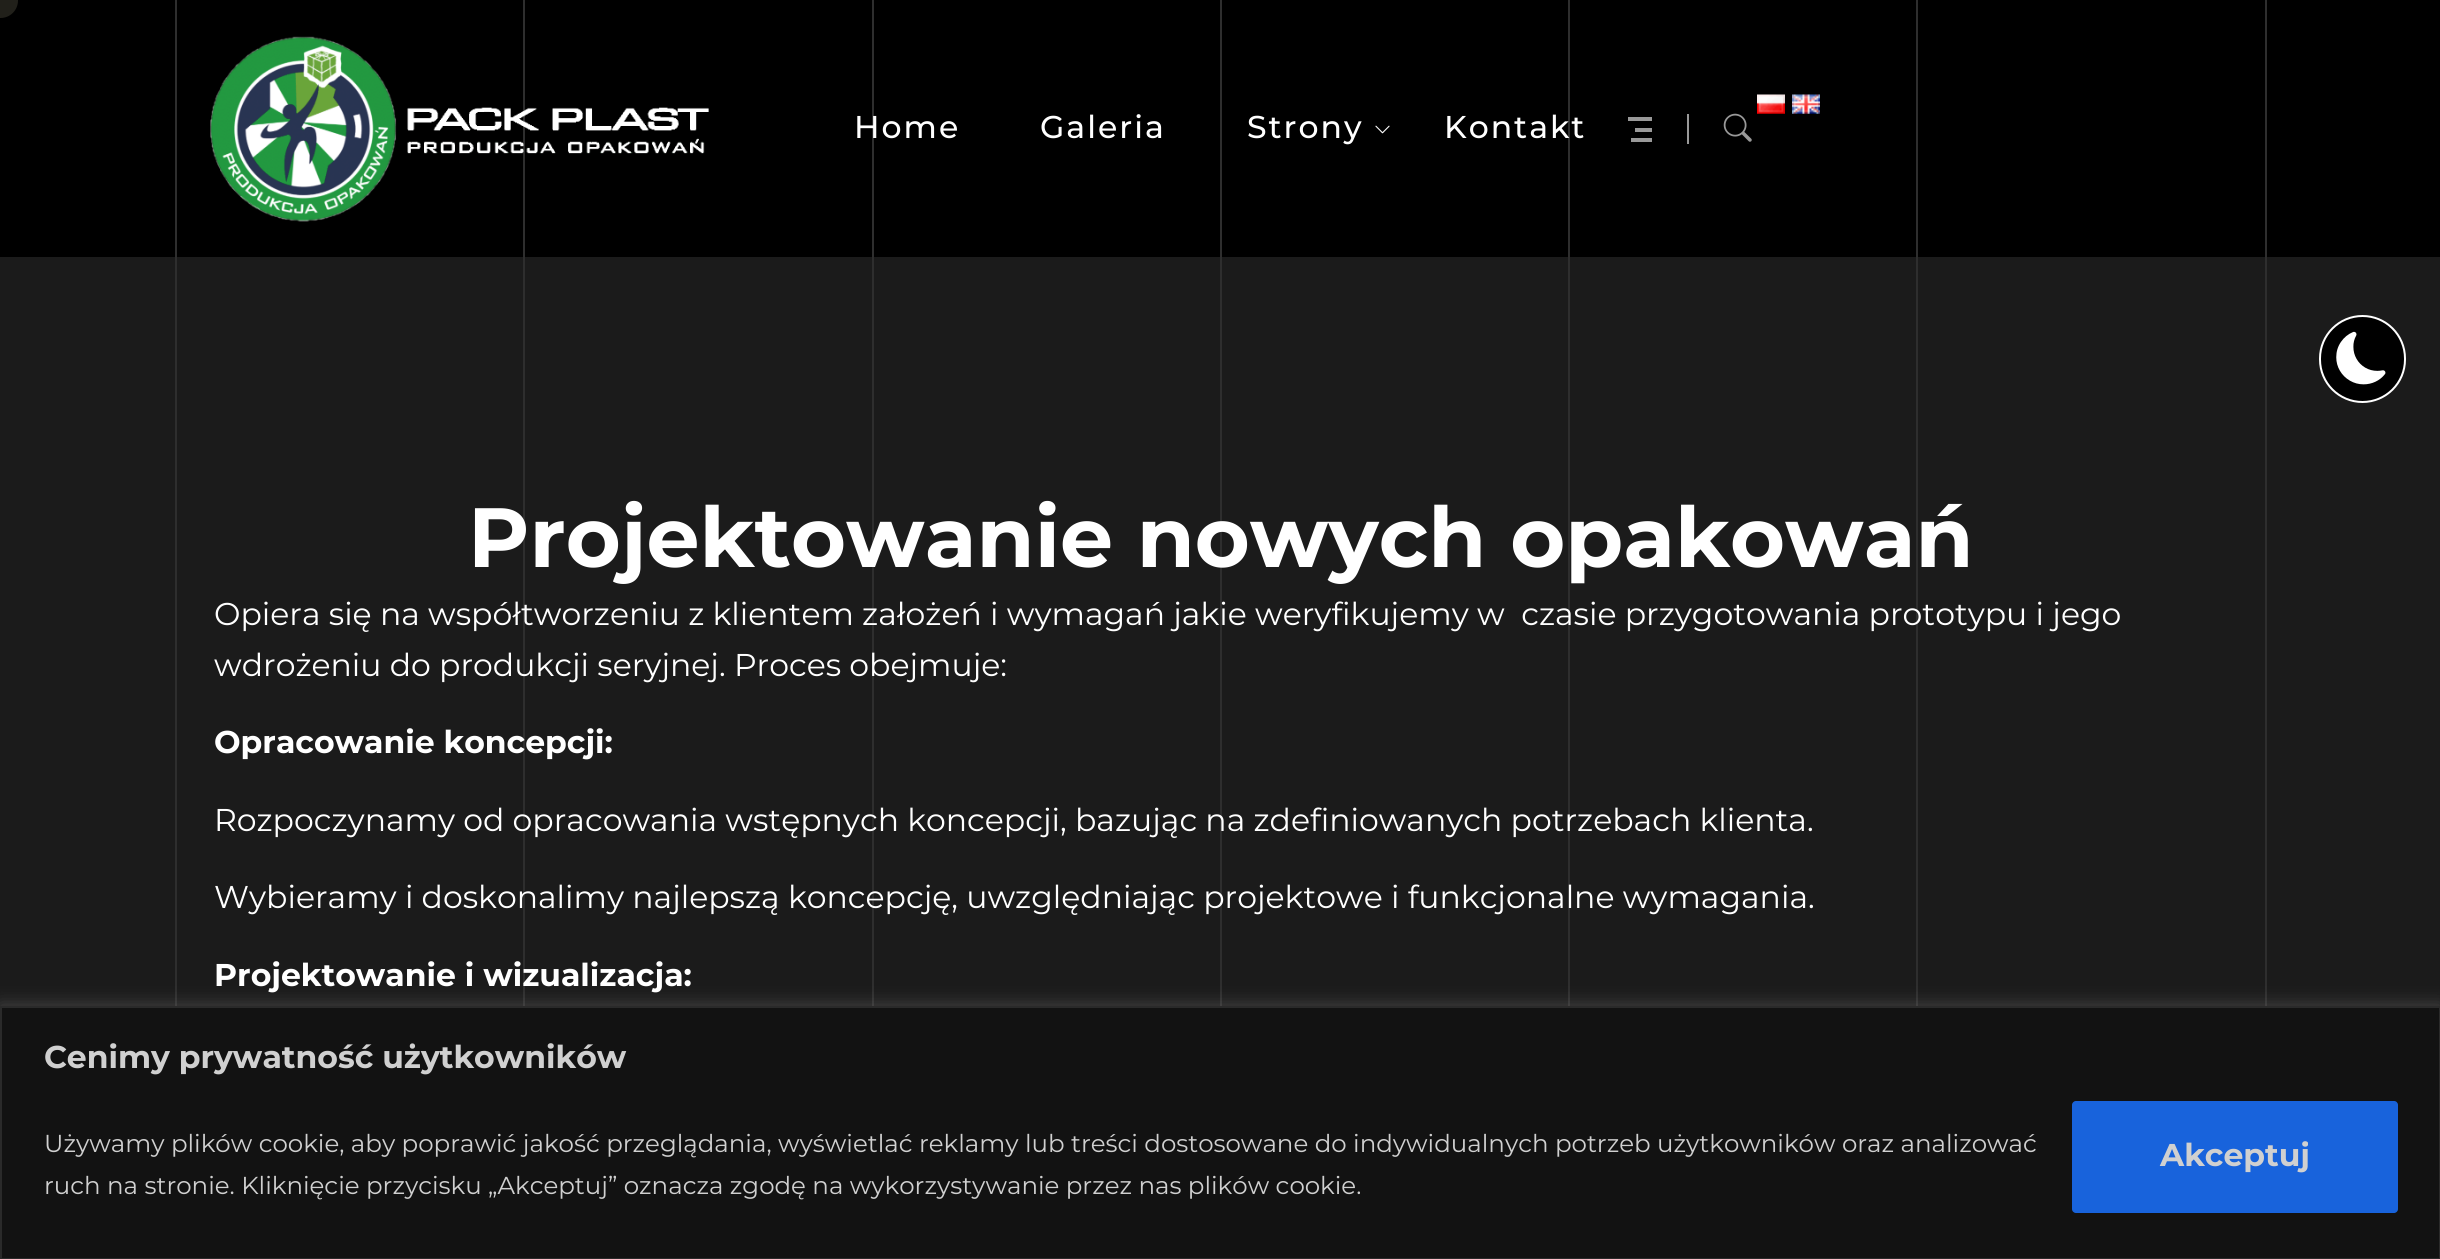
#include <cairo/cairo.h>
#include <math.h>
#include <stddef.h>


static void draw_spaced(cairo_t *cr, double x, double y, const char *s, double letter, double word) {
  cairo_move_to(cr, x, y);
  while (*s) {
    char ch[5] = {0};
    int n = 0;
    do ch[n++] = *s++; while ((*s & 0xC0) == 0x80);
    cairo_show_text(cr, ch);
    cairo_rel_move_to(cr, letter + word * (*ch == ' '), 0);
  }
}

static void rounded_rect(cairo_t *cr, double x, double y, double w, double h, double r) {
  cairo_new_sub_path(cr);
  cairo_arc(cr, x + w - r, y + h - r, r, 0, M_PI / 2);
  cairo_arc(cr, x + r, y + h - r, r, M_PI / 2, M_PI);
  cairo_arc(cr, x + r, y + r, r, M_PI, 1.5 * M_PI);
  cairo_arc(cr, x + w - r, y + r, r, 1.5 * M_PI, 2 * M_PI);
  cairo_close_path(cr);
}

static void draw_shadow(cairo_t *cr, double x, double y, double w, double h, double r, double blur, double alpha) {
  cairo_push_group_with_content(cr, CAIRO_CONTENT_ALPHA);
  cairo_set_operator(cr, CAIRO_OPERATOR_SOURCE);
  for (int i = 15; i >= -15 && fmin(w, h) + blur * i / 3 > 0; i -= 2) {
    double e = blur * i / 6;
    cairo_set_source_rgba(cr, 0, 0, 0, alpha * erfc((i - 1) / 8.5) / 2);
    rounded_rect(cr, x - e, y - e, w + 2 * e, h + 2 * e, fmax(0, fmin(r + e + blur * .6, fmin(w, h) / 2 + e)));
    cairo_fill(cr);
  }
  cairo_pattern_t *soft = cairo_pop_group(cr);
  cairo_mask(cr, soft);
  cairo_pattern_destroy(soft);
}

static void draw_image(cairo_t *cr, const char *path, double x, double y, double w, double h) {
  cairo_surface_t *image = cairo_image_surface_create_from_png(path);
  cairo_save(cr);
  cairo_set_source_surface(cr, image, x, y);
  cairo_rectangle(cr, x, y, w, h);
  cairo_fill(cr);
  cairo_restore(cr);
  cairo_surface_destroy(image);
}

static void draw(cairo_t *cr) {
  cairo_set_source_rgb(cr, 27 / 255.0, 27 / 255.0, 27 / 255.0);
  cairo_paint(cr);
  cairo_set_source_rgb(cr, 0, 0, 0);
  cairo_rectangle(cr, 0, 0, 2440, 257);
  cairo_fill(cr);
  cairo_set_source_rgb(cr, 33 / 255.0, 32 / 255.0, 26 / 255.0);
  cairo_arc(cr, 0.5, 0.5, 17.5, 0, 2 * M_PI);
  cairo_fill(cr);
  cairo_set_source_rgb(cr, 46 / 255.0, 46 / 255.0, 46 / 255.0);
  cairo_rectangle(cr, 175, 0, 2, 257);
  cairo_fill(cr);
  cairo_rectangle(cr, 523, 0, 2, 257);
  cairo_fill(cr);
  cairo_rectangle(cr, 872, 0, 2, 257);
  cairo_fill(cr);
  cairo_rectangle(cr, 1220, 0, 2, 257);
  cairo_fill(cr);
  cairo_rectangle(cr, 1568, 0, 2, 257);
  cairo_fill(cr);
  cairo_rectangle(cr, 1916, 0, 2, 257);
  cairo_fill(cr);
  cairo_rectangle(cr, 2265, 0, 2, 257);
  cairo_fill(cr);
  draw_image(cr, "images/1.png", 210, 36, 499, 186);
  draw_image(cr, "images/2.png", 1375, 125, 15, 9);
  draw_image(cr, "images/3.png", 1757, 94, 28, 20);
  draw_image(cr, "images/4.png", 1792, 94, 28, 20);
  cairo_set_source_rgb(cr, 153 / 255.0, 153 / 255.0, 153 / 255.0);
  cairo_rectangle(cr, 1628, 117, 24, 4);
  cairo_fill(cr);
  cairo_rectangle(cr, 1635, 128, 17, 4);
  cairo_fill(cr);
  cairo_rectangle(cr, 1631, 138, 21, 4);
  cairo_fill(cr);
  cairo_rectangle(cr, 1687, 114, 2, 30);
  cairo_fill(cr);
  draw_image(cr, "images/5.png", 1723, 113, 29, 29);
  cairo_set_source_rgb(cr, 0, 0, 0);
  rounded_rect(cr, 2320, 316, 85, 86, 42.5);
  cairo_fill_preserve(cr);
  cairo_set_source_rgb(cr, 1, 1, 1);
  cairo_stroke(cr);
  draw_image(cr, "images/6.png", 2336, 331, 50, 54);
  cairo_set_source_rgb(cr, 46 / 255.0, 46 / 255.0, 46 / 255.0);
  cairo_rectangle(cr, 175, 257, 2, 749);
  cairo_fill(cr);
  cairo_rectangle(cr, 523, 257, 2, 749);
  cairo_fill(cr);
  cairo_rectangle(cr, 872, 257, 2, 749);
  cairo_fill(cr);
  cairo_rectangle(cr, 1220, 257, 2, 749);
  cairo_fill(cr);
  cairo_rectangle(cr, 1568, 257, 2, 749);
  cairo_fill(cr);
  cairo_rectangle(cr, 1916, 257, 2, 749);
  cairo_fill(cr);
  cairo_rectangle(cr, 2265, 257, 2, 749);
  cairo_fill(cr);
  cairo_set_source_rgb(cr, 172 / 255.0, 171 / 255.0, 171 / 255.0);
  draw_shadow(cr, 0, 1005, 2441, 253, 0, 9, 0.3);
  cairo_set_source_rgb(cr, 18 / 255.0, 18 / 255.0, 18 / 255.0);
  cairo_rectangle(cr, 1, 1007, 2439, 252);
  cairo_fill_preserve(cr);
  cairo_set_source_rgb(cr, 42 / 255.0, 42 / 255.0, 42 / 255.0);
  cairo_stroke(cr);
  cairo_set_source_rgb(cr, 24 / 255.0, 99 / 255.0, 220 / 255.0);
  rounded_rect(cr, 2072, 1101, 326, 112, 4);
  cairo_fill(cr);
  cairo_select_font_face(cr, "Montserrat Medium", CAIRO_FONT_SLANT_NORMAL, CAIRO_FONT_WEIGHT_NORMAL);
  cairo_set_font_size(cr, 31.5);
  cairo_set_source_rgb(cr, 1, 1, 1);
  draw_spaced(cr, 854, 138, "Home", 2, 0);
  draw_spaced(cr, 1040, 138, "Galeria", 2, 0);
  draw_spaced(cr, 1247, 138, "Strony", 2, 0);
  draw_spaced(cr, 1444, 138, "Kontakt", 2, 0);
  cairo_select_font_face(cr, "Montserrat", CAIRO_FONT_SLANT_NORMAL, CAIRO_FONT_WEIGHT_BOLD);
  cairo_set_font_size(cr, 84);
  cairo_move_to(cr, 468, 567);
  cairo_show_text(cr, "Projektowanie nowych opakowań");
  cairo_select_font_face(cr, "Montserrat", CAIRO_FONT_SLANT_NORMAL, CAIRO_FONT_WEIGHT_NORMAL);
  cairo_set_font_size(cr, 31.5);
  cairo_move_to(cr, 214, 625);
  cairo_show_text(cr, "Opiera się na współtworzeniu z klientem założeń i wymagań jakie weryfikujemy w  czasie przygotowania prototypu i jego");
  cairo_move_to(cr, 214, 676);
  cairo_show_text(cr, "wdrożeniu do produkcji seryjnej. Proces obejmuje:");
  cairo_select_font_face(cr, "Montserrat", CAIRO_FONT_SLANT_NORMAL, CAIRO_FONT_WEIGHT_BOLD);
  cairo_move_to(cr, 214, 753);
  cairo_show_text(cr, "Opracowanie koncepcji:");
  cairo_select_font_face(cr, "Montserrat", CAIRO_FONT_SLANT_NORMAL, CAIRO_FONT_WEIGHT_NORMAL);
  cairo_move_to(cr, 214, 831);
  cairo_show_text(cr, "Rozpoczynamy od opracowania wstępnych koncepcji, bazując na zdefiniowanych potrzebach klienta.");
  cairo_move_to(cr, 214, 908);
  cairo_show_text(cr, "Wybieramy i doskonalimy najlepszą koncepcję, uwzględniając projektowe i funkcjonalne wymagania.");
  cairo_select_font_face(cr, "Montserrat", CAIRO_FONT_SLANT_NORMAL, CAIRO_FONT_WEIGHT_BOLD);
  cairo_move_to(cr, 214, 986);
  cairo_show_text(cr, "Projektowanie i wizualizacja:");
  cairo_set_source_rgb(cr, 208 / 255.0, 208 / 255.0, 208 / 255.0);
  cairo_move_to(cr, 44, 1068);
  cairo_show_text(cr, "Cenimy prywatność użytkowników");
  cairo_select_font_face(cr, "Montserrat", CAIRO_FONT_SLANT_NORMAL, CAIRO_FONT_WEIGHT_NORMAL);
  cairo_set_font_size(cr, 24.5);
  cairo_move_to(cr, 44, 1152);
  cairo_show_text(cr, "Używamy plików cookie, aby poprawić jakość przeglądania, wyświetlać reklamy lub treści dostosowane do indywidualnych potrzeb użytkowników oraz analizować");
  cairo_move_to(cr, 44, 1194);
  cairo_show_text(cr, "ruch na stronie. Kliknięcie przycisku „Akceptuj” oznacza zgodę na wykorzystywanie przez nas plików cookie.");
  cairo_select_font_face(cr, "Montserrat", CAIRO_FONT_SLANT_NORMAL, CAIRO_FONT_WEIGHT_BOLD);
  cairo_set_font_size(cr, 31.5);
  cairo_move_to(cr, 2160, 1166);
  cairo_show_text(cr, "Akceptuj");
}

int main(void) {
  cairo_surface_t *surface = cairo_image_surface_create(CAIRO_FORMAT_RGB24, 2440, 1259);
  cairo_t *cr = cairo_create(surface);
  cairo_font_options_t *options = cairo_font_options_create();
  cairo_font_options_set_hint_metrics(options, CAIRO_HINT_METRICS_OFF);
  cairo_font_options_set_hint_style(options, CAIRO_HINT_STYLE_NONE);
  cairo_set_font_options(cr, options);
  cairo_set_miter_limit(cr, 4);
  draw(cr);
  cairo_surface_write_to_png(surface, "out.png");
  cairo_font_options_destroy(options);
  cairo_destroy(cr);
  cairo_surface_destroy(surface);
  return 0;
}
